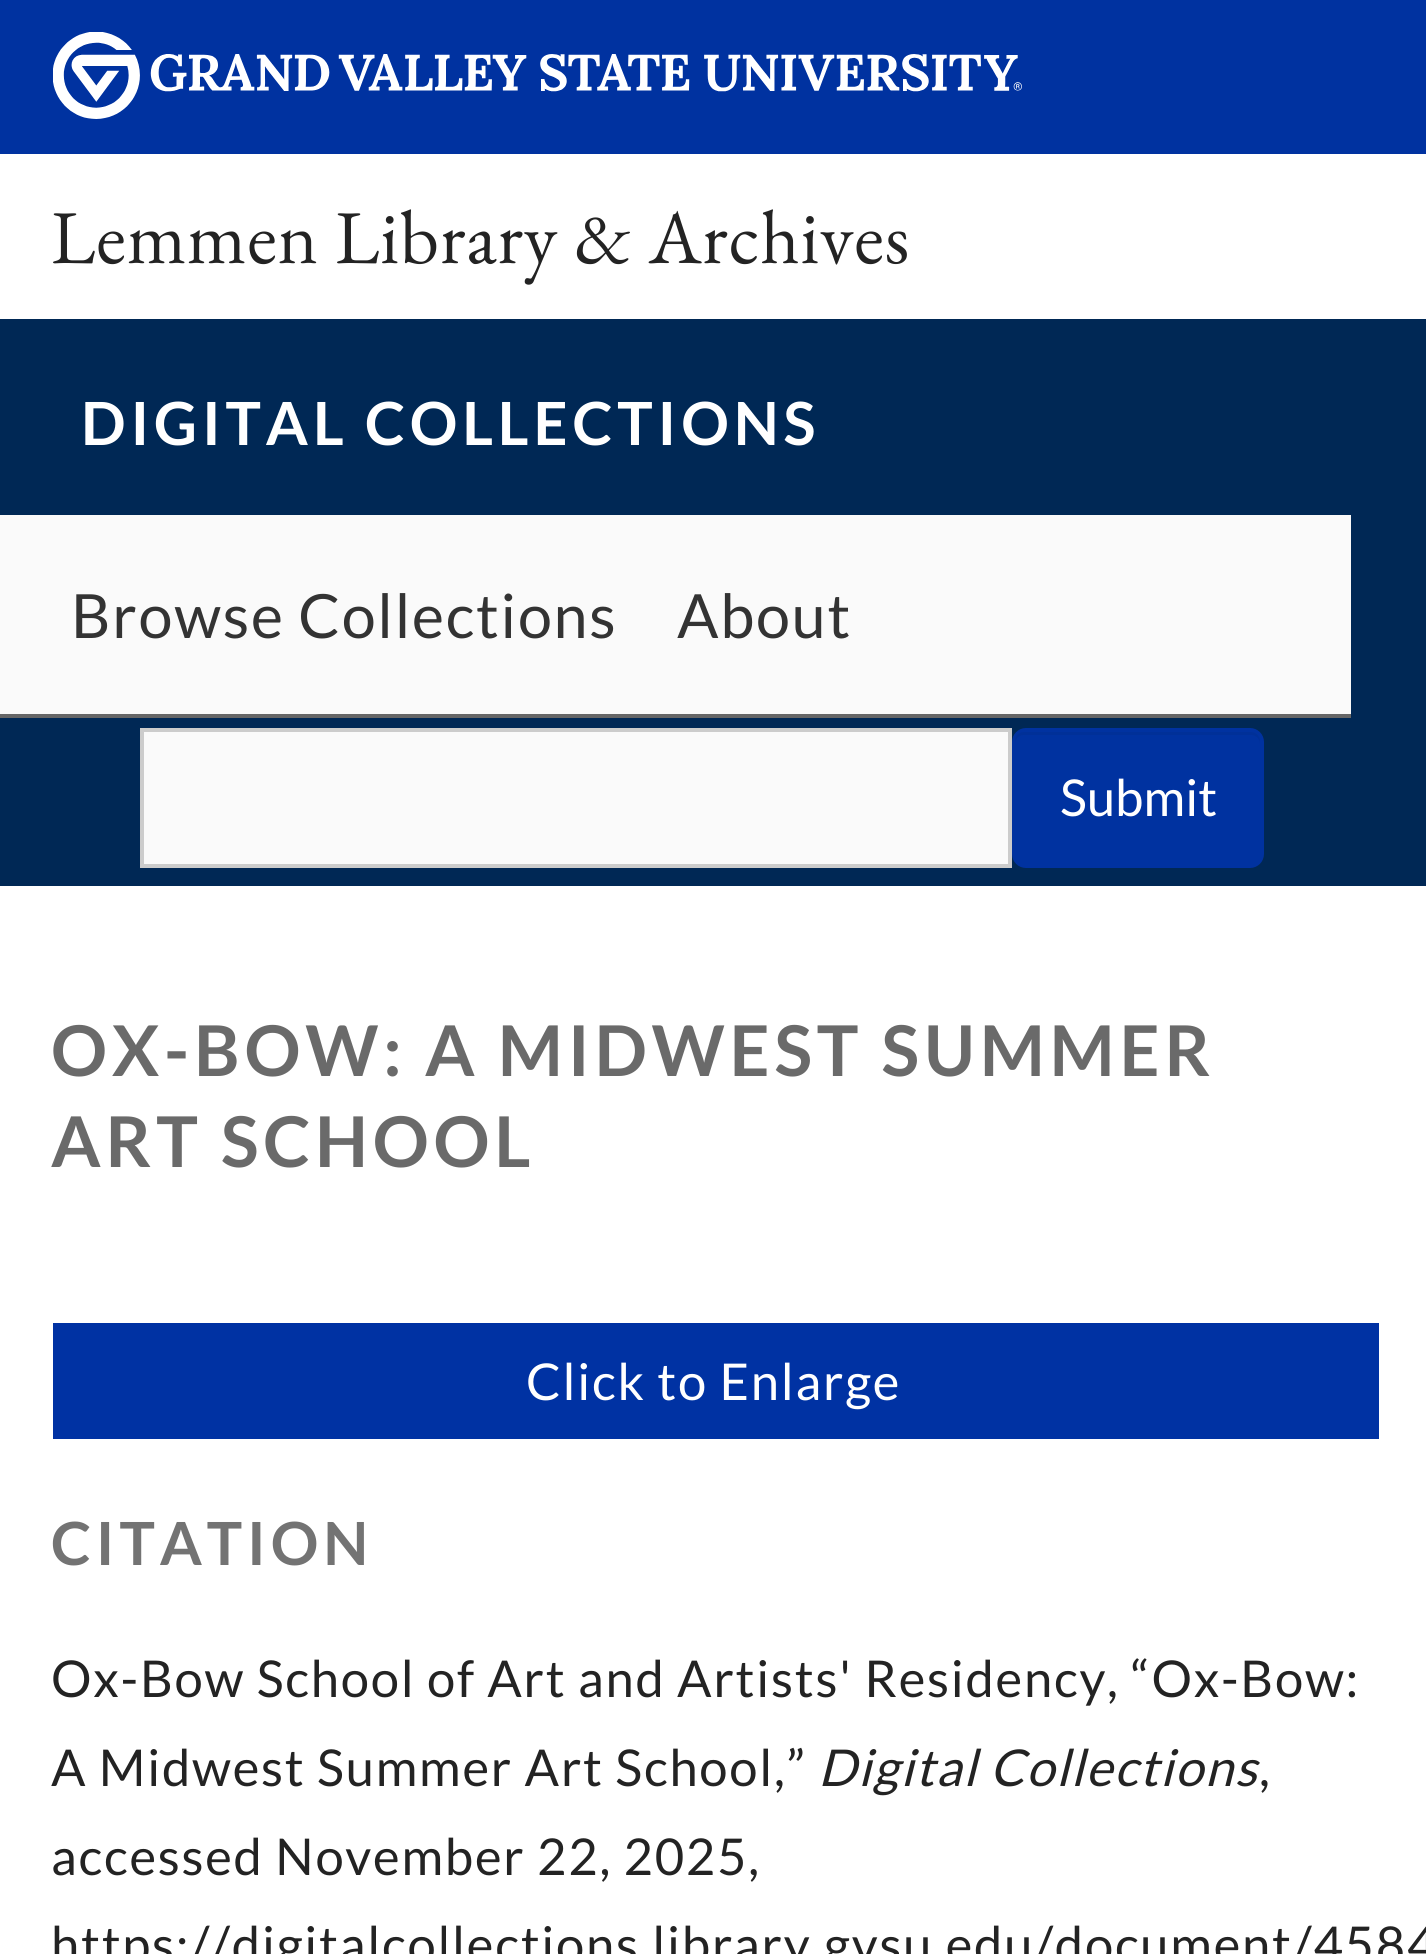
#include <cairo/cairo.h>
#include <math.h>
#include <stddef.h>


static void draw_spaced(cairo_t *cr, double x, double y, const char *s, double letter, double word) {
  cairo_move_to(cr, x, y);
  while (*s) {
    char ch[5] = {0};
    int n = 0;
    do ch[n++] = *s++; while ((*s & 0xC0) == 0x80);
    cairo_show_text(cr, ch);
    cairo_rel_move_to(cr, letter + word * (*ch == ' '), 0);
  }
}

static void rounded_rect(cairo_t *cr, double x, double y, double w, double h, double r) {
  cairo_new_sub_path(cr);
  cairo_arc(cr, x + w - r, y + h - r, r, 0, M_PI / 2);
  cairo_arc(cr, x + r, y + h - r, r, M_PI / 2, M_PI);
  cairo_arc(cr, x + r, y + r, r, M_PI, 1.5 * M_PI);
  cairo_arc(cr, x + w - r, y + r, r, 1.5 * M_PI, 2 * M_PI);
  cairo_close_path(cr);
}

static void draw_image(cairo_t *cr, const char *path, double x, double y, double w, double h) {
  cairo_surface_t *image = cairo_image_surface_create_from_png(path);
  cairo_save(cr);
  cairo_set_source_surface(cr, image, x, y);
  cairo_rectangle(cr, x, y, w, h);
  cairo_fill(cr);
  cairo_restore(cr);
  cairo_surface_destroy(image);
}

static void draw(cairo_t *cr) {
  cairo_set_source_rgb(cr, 1, 1, 1);
  cairo_paint(cr);
  cairo_set_source_rgb(cr, 0, 50 / 255.0, 160 / 255.0);
  cairo_rectangle(cr, 0, 0, 1426, 154);
  cairo_fill(cr);
  draw_image(cr, "images/1.png", 53, 32, 969, 87);
  cairo_set_source_rgb(cr, 0, 40 / 255.0, 85 / 255.0);
  cairo_rectangle(cr, 0, 319, 1426, 567);
  cairo_fill(cr);
  cairo_set_source_rgb(cr, 250 / 255.0, 250 / 255.0, 250 / 255.0);
  cairo_rectangle(cr, 0, 515, 1351, 199);
  cairo_fill(cr);
  cairo_set_source_rgb(cr, 102 / 255.0, 102 / 255.0, 102 / 255.0);
  cairo_rectangle(cr, 0, 714, 1351, 4);
  cairo_fill(cr);
  cairo_set_source_rgb(cr, 250 / 255.0, 250 / 255.0, 250 / 255.0);
  cairo_rectangle(cr, 142, 730, 868, 136);
  cairo_fill_preserve(cr);
  cairo_set_source_rgb(cr, 204 / 255.0, 204 / 255.0, 204 / 255.0);
  cairo_set_line_width(cr, 4);
  cairo_stroke(cr);
  cairo_set_source_rgb(cr, 0, 50 / 255.0, 160 / 255.0);
  rounded_rect(cr, 1012, 728, 252, 140, 14);
  cairo_fill(cr);
  cairo_set_source_rgb(cr, 0, 48 / 255.0, 152 / 255.0);
  cairo_new_path(cr);
  cairo_move_to(cr, 1024, 735);
  cairo_line_to(cr, 1251, 735);
  cairo_curve_to(cr, 1256, 735, 1260, 739, 1260, 744);
  cairo_line_to(cr, 1260, 741);
  cairo_curve_to(cr, 1260, 736, 1256, 732, 1251, 732);
  cairo_line_to(cr, 1024, 732);
  cairo_curve_to(cr, 1019, 732, 1015, 736, 1015, 741);
  cairo_line_to(cr, 1015, 744);
  cairo_curve_to(cr, 1015, 739, 1019, 735, 1024, 735);
  cairo_close_path(cr);
  cairo_fill(cr);
  cairo_set_source_rgb(cr, 0, 50 / 255.0, 163 / 255.0);
  cairo_rectangle(cr, 53, 1323, 1326, 116);
  cairo_fill(cr);
  cairo_select_font_face(cr, "EB Garamond", CAIRO_FONT_SLANT_NORMAL, CAIRO_FONT_WEIGHT_NORMAL);
  cairo_set_font_size(cr, 76.1);
  cairo_set_source_rgb(cr, 35 / 255.0, 35 / 255.0, 35 / 255.0);
  draw_spaced(cr, 51, 263, "Lemmen Library & Archives", 0.9, 0);
  cairo_select_font_face(cr, "Lato", CAIRO_FONT_SLANT_NORMAL, CAIRO_FONT_WEIGHT_BOLD);
  cairo_set_font_size(cr, 59.5);
  cairo_set_source_rgb(cr, 1, 1, 1);
  draw_spaced(cr, 81, 445, "DIGITAL COLLECTIONS", 4.9, 0);
  cairo_select_font_face(cr, "Lato", CAIRO_FONT_SLANT_NORMAL, CAIRO_FONT_WEIGHT_NORMAL);
  cairo_set_font_size(cr, 61);
  cairo_set_source_rgb(cr, 51 / 255.0, 51 / 255.0, 51 / 255.0);
  draw_spaced(cr, 71, 638, "Browse Collections", 1.75, 0);
  draw_spaced(cr, 677, 638, "About", 1.75, 0);
  cairo_set_font_size(cr, 50.75);
  cairo_set_source_rgb(cr, 1, 1, 1);
  cairo_move_to(cr, 1060, 816);
  cairo_show_text(cr, "Submit");
  cairo_select_font_face(cr, "Lato", CAIRO_FONT_SLANT_NORMAL, CAIRO_FONT_WEIGHT_BOLD);
  cairo_set_font_size(cr, 70);
  cairo_set_source_rgb(cr, 106 / 255.0, 106 / 255.0, 106 / 255.0);
  draw_spaced(cr, 51, 1076, "OX-BOW: A MIDWEST SUMMER", 4.8, 0);
  draw_spaced(cr, 51, 1167, "ART SCHOOL", 4.8, 0);
  cairo_select_font_face(cr, "Lato", CAIRO_FONT_SLANT_NORMAL, CAIRO_FONT_WEIGHT_NORMAL);
  cairo_set_font_size(cr, 50.75);
  cairo_set_source_rgb(cr, 1, 1, 1);
  draw_spaced(cr, 526, 1400, "Click to Enlarge", 1.75, 0);
  cairo_select_font_face(cr, "Lato", CAIRO_FONT_SLANT_NORMAL, CAIRO_FONT_WEIGHT_BOLD);
  cairo_set_font_size(cr, 59.5);
  cairo_set_source_rgb(cr, 115 / 255.0, 115 / 255.0, 115 / 255.0);
  draw_spaced(cr, 51, 1565, "CITATION", 4.9, 0);
  cairo_select_font_face(cr, "Lato", CAIRO_FONT_SLANT_NORMAL, CAIRO_FONT_WEIGHT_NORMAL);
  cairo_set_font_size(cr, 50.75);
  cairo_set_source_rgb(cr, 35 / 255.0, 35 / 255.0, 35 / 255.0);
  draw_spaced(cr, 51, 1697, "Ox-Bow School of Art and Artists' Residency, “Ox-Bow:", 1.75, 0);
  draw_spaced(cr, 51, 1786, "A Midwest Summer Art School,”", 1.75, 0);
  cairo_select_font_face(cr, "Lato", CAIRO_FONT_SLANT_ITALIC, CAIRO_FONT_WEIGHT_NORMAL);
  draw_spaced(cr, 818, 1786, "Digital Collections", 1.75, 0);
  cairo_select_font_face(cr, "Lato", CAIRO_FONT_SLANT_NORMAL, CAIRO_FONT_WEIGHT_NORMAL);
  draw_spaced(cr, 1259, 1786, ",", 1.75, 0);
  draw_spaced(cr, 51, 1875, "accessed November 22, 2025,", 1.75, 0);
  draw_spaced(cr, 51, 1963, "https://digitalcollections.library.gvsu.edu/document/4584", 1.75, 0);
}

int main(void) {
  cairo_surface_t *surface = cairo_image_surface_create(CAIRO_FORMAT_RGB24, 1426, 1954);
  cairo_t *cr = cairo_create(surface);
  cairo_font_options_t *options = cairo_font_options_create();
  cairo_font_options_set_hint_metrics(options, CAIRO_HINT_METRICS_OFF);
  cairo_font_options_set_hint_style(options, CAIRO_HINT_STYLE_NONE);
  cairo_set_font_options(cr, options);
  cairo_set_miter_limit(cr, 4);
  draw(cr);
  cairo_surface_write_to_png(surface, "out.png");
  cairo_font_options_destroy(options);
  cairo_destroy(cr);
  cairo_surface_destroy(surface);
  return 0;
}
